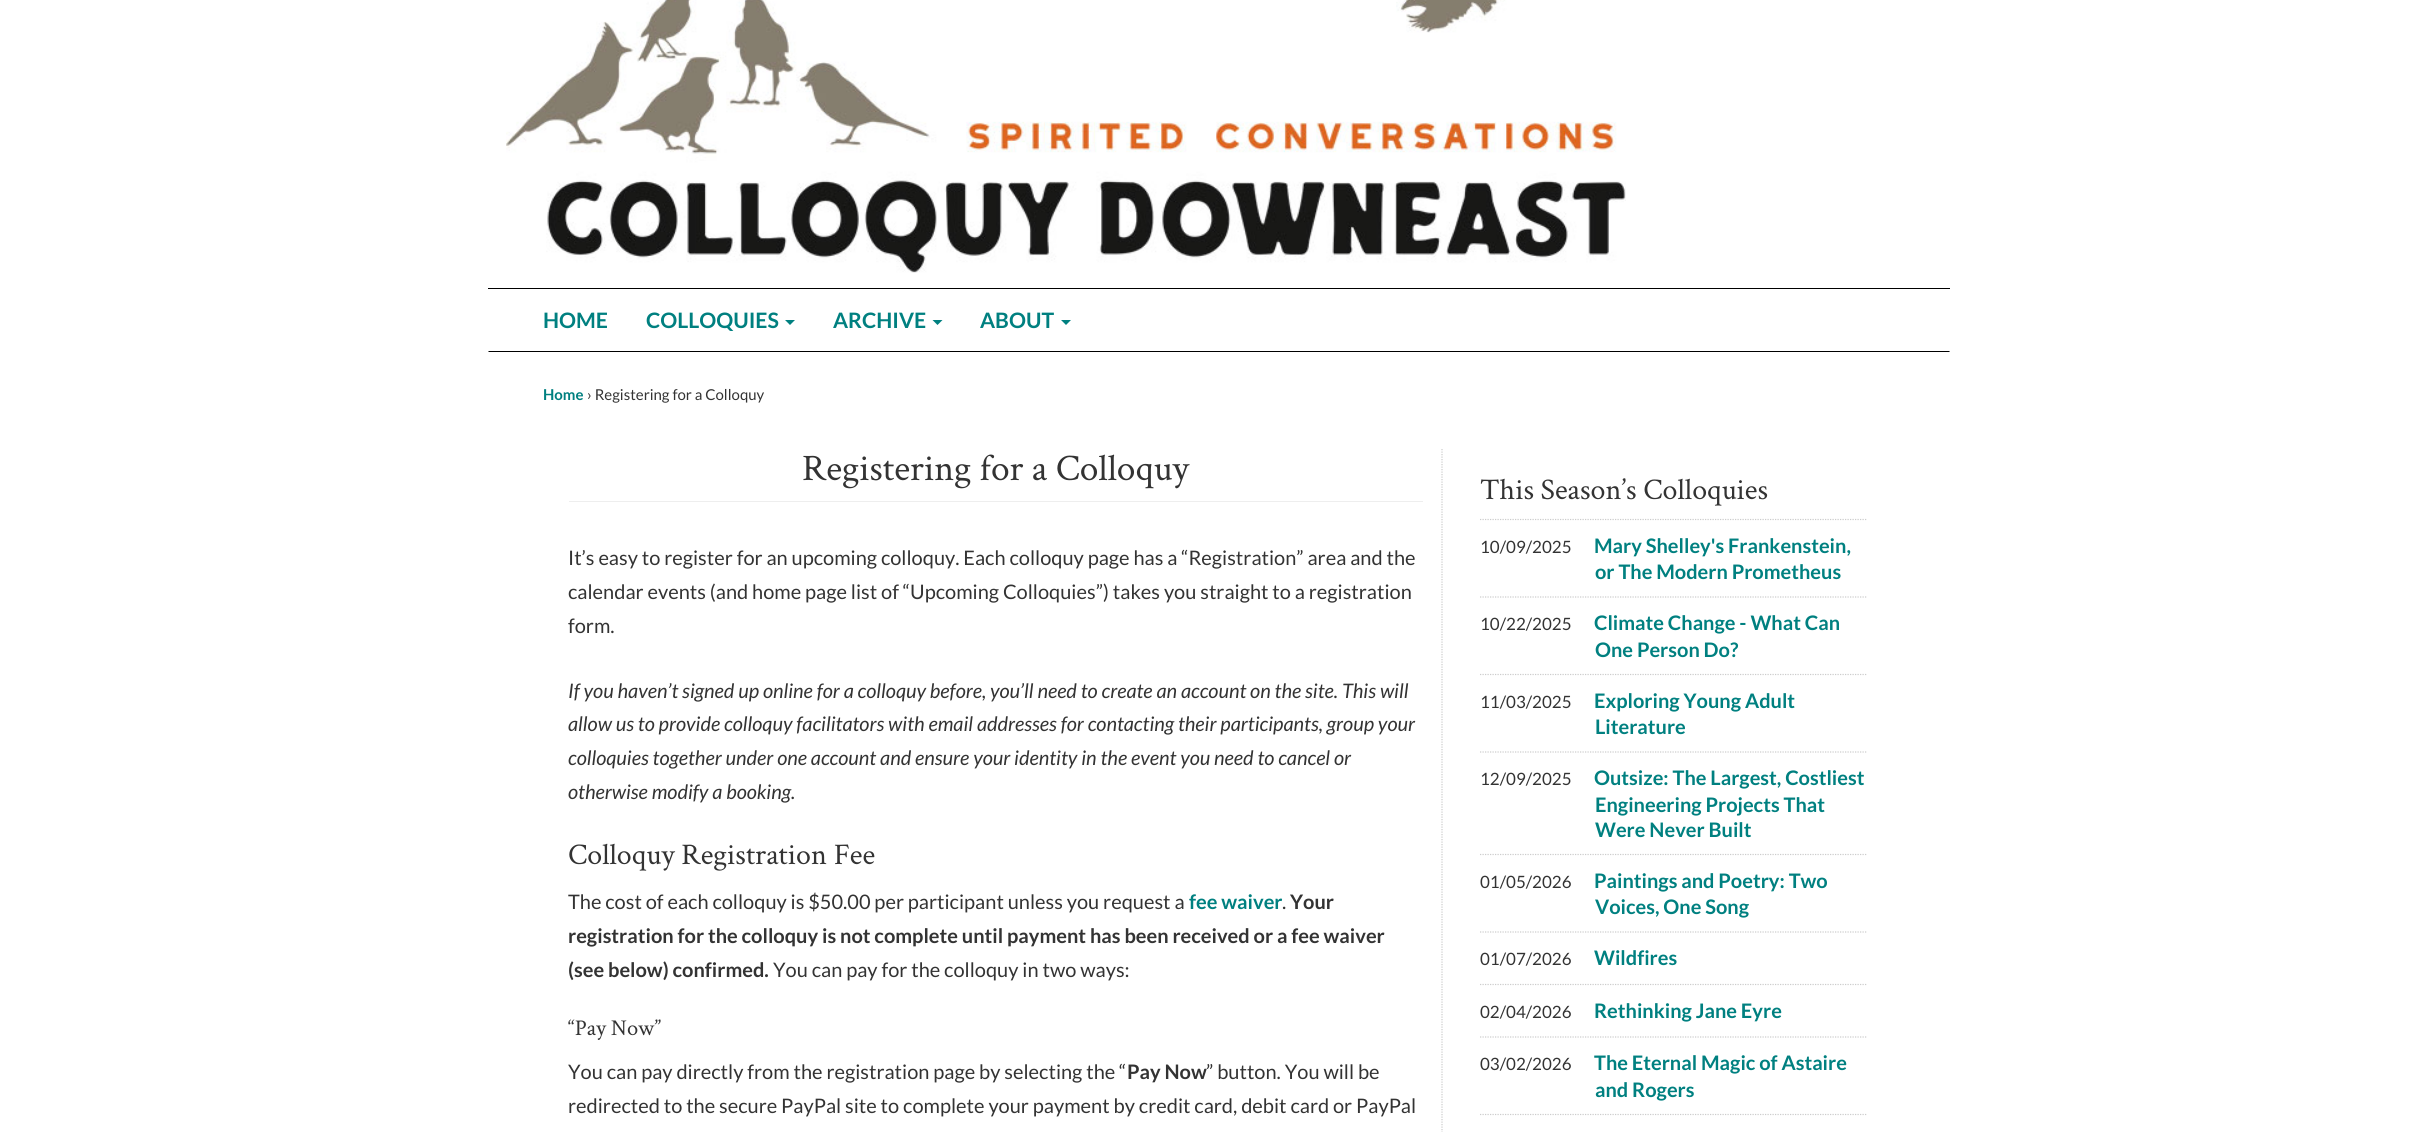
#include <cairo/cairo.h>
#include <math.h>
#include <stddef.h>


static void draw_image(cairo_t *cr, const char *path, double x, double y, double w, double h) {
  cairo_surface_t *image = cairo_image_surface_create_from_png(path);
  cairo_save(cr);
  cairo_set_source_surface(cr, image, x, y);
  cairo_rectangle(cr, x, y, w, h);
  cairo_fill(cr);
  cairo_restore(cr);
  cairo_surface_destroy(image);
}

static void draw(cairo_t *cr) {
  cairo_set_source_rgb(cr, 1, 1, 1);
  cairo_paint(cr);
  cairo_set_source_rgb(cr, 0, 0, 0);
  cairo_rectangle(cr, 488, 288, 1462, 1);
  cairo_fill(cr);
  draw_image(cr, "images/1.png", 506, 0, 1120, 273);
  cairo_new_path(cr);
  cairo_move_to(cr, 1950, 352);
  cairo_line_to(cr, 488, 352);
  cairo_line_to(cr, 489, 351);
  cairo_line_to(cr, 1949, 351);
  cairo_close_path(cr);
  cairo_fill(cr);
  cairo_set_source_rgb(cr, 0, 128 / 255.0, 128 / 255.0);
  cairo_new_path(cr);
  cairo_move_to(cr, 785, 320);
  cairo_line_to(cr, 795, 320);
  cairo_line_to(cr, 790, 325);
  cairo_close_path(cr);
  cairo_fill(cr);
  cairo_new_path(cr);
  cairo_move_to(cr, 932.5, 320);
  cairo_line_to(cr, 942.5, 320);
  cairo_line_to(cr, 937.5, 325);
  cairo_close_path(cr);
  cairo_fill(cr);
  cairo_new_path(cr);
  cairo_move_to(cr, 1061, 320);
  cairo_line_to(cr, 1071, 320);
  cairo_line_to(cr, 1066, 325);
  cairo_close_path(cr);
  cairo_fill(cr);
  cairo_set_source_rgb(cr, 238 / 255.0, 238 / 255.0, 238 / 255.0);
  cairo_rectangle(cr, 569, 501, 854, 1);
  cairo_fill(cr);
  cairo_new_path(cr);
  cairo_move_to(cr, 1442, 449);
  cairo_line_to(cr, 1442, 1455);
  cairo_set_source_rgb(cr, 204 / 255.0, 204 / 255.0, 204 / 255.0);
  cairo_set_line_width(cr, 1.2);
  cairo_set_dash(cr, (double[]){1.25, 1.25}, 2, 0);
  cairo_stroke(cr);
  cairo_new_path(cr);
  cairo_move_to(cr, 1480, 519.5);
  cairo_line_to(cr, 1867.5, 519.5);
  cairo_stroke(cr);
  cairo_new_path(cr);
  cairo_move_to(cr, 1480, 597);
  cairo_line_to(cr, 1867.5, 597);
  cairo_stroke(cr);
  cairo_new_path(cr);
  cairo_move_to(cr, 1480, 674.5);
  cairo_line_to(cr, 1867.5, 674.5);
  cairo_stroke(cr);
  cairo_new_path(cr);
  cairo_move_to(cr, 1480, 752);
  cairo_line_to(cr, 1867.5, 752);
  cairo_stroke(cr);
  cairo_new_path(cr);
  cairo_move_to(cr, 1480, 854.5);
  cairo_line_to(cr, 1867.5, 854.5);
  cairo_stroke(cr);
  cairo_new_path(cr);
  cairo_move_to(cr, 1480, 932);
  cairo_line_to(cr, 1867.5, 932);
  cairo_stroke(cr);
  cairo_new_path(cr);
  cairo_move_to(cr, 1480, 984.5);
  cairo_line_to(cr, 1867.5, 984.5);
  cairo_stroke(cr);
  cairo_new_path(cr);
  cairo_move_to(cr, 1480, 1037);
  cairo_line_to(cr, 1867.5, 1037);
  cairo_stroke(cr);
  cairo_new_path(cr);
  cairo_move_to(cr, 1480, 1114.5);
  cairo_line_to(cr, 1867.5, 1114.5);
  cairo_stroke(cr);
  cairo_select_font_face(cr, "Lato", CAIRO_FONT_SLANT_NORMAL, CAIRO_FONT_WEIGHT_BOLD);
  cairo_set_font_size(cr, 21.25);
  cairo_set_source_rgb(cr, 0, 128 / 255.0, 128 / 255.0);
  cairo_move_to(cr, 543, 328);
  cairo_show_text(cr, "HOME");
  cairo_move_to(cr, 646, 328);
  cairo_show_text(cr, "COLLOQUIES");
  cairo_move_to(cr, 833, 328);
  cairo_show_text(cr, "ARCHIVE");
  cairo_move_to(cr, 980, 328);
  cairo_show_text(cr, "ABOUT");
  cairo_set_font_size(cr, 15);
  cairo_move_to(cr, 543, 400);
  cairo_show_text(cr, "Home");
  cairo_select_font_face(cr, "Lato", CAIRO_FONT_SLANT_NORMAL, CAIRO_FONT_WEIGHT_NORMAL);
  cairo_set_source_rgb(cr, 51 / 255.0, 51 / 255.0, 51 / 255.0);
  cairo_move_to(cr, 587, 400);
  cairo_show_text(cr, "› Registering for a Colloquy");
  cairo_select_font_face(cr, "Crimson Text", CAIRO_FONT_SLANT_NORMAL, CAIRO_FONT_WEIGHT_NORMAL);
  cairo_set_font_size(cr, 37.5);
  cairo_move_to(cr, 802, 480);
  cairo_show_text(cr, "Registering for a Colloquy");
  cairo_select_font_face(cr, "Lato", CAIRO_FONT_SLANT_NORMAL, CAIRO_FONT_WEIGHT_NORMAL);
  cairo_set_font_size(cr, 20);
  cairo_move_to(cr, 568, 565);
  cairo_show_text(cr, "It’s easy to register for an upcoming colloquy. Each colloquy page has a “Registration” area and the");
  cairo_move_to(cr, 568, 599);
  cairo_show_text(cr, "calendar events (and home page list of “Upcoming Colloquies”) takes you straight to a registration");
  cairo_move_to(cr, 568, 633);
  cairo_show_text(cr, "form.");
  cairo_select_font_face(cr, "Lato", CAIRO_FONT_SLANT_ITALIC, CAIRO_FONT_WEIGHT_NORMAL);
  cairo_move_to(cr, 568, 698);
  cairo_show_text(cr, "If you haven’t signed up online for a colloquy before, you’ll need to create an account on the site. This will");
  cairo_move_to(cr, 568, 731);
  cairo_show_text(cr, "allow us to provide colloquy facilitators with email addresses for contacting their participants, group your");
  cairo_move_to(cr, 568, 765);
  cairo_show_text(cr, "colloquies together under one account and ensure your identity in the event you need to cancel or");
  cairo_move_to(cr, 568, 799);
  cairo_show_text(cr, "otherwise modify a booking.");
  cairo_select_font_face(cr, "Crimson Text", CAIRO_FONT_SLANT_NORMAL, CAIRO_FONT_WEIGHT_NORMAL);
  cairo_set_font_size(cr, 30);
  cairo_move_to(cr, 568, 864);
  cairo_show_text(cr, "Colloquy Registration Fee");
  cairo_select_font_face(cr, "Lato", CAIRO_FONT_SLANT_NORMAL, CAIRO_FONT_WEIGHT_NORMAL);
  cairo_set_font_size(cr, 20);
  cairo_move_to(cr, 568, 909);
  cairo_show_text(cr, "The cost of each colloquy is $50.00 per participant unless you request a");
  cairo_select_font_face(cr, "Lato", CAIRO_FONT_SLANT_NORMAL, CAIRO_FONT_WEIGHT_BOLD);
  cairo_set_source_rgb(cr, 0, 128 / 255.0, 128 / 255.0);
  cairo_move_to(cr, 1189, 909);
  cairo_show_text(cr, "fee waiver");
  cairo_select_font_face(cr, "Lato", CAIRO_FONT_SLANT_NORMAL, CAIRO_FONT_WEIGHT_NORMAL);
  cairo_set_source_rgb(cr, 51 / 255.0, 51 / 255.0, 51 / 255.0);
  cairo_move_to(cr, 1282, 909);
  cairo_show_text(cr, ".");
  cairo_select_font_face(cr, "Lato", CAIRO_FONT_SLANT_NORMAL, CAIRO_FONT_WEIGHT_BOLD);
  cairo_move_to(cr, 1290, 909);
  cairo_show_text(cr, "Your");
  cairo_move_to(cr, 568, 943);
  cairo_show_text(cr, "registration for the colloquy is not complete until payment has been received or a fee waiver");
  cairo_move_to(cr, 568, 977);
  cairo_show_text(cr, "(see below) confirmed.");
  cairo_select_font_face(cr, "Lato", CAIRO_FONT_SLANT_NORMAL, CAIRO_FONT_WEIGHT_NORMAL);
  cairo_move_to(cr, 773, 977);
  cairo_show_text(cr, "You can pay for the colloquy in two ways:");
  cairo_select_font_face(cr, "Crimson Text", CAIRO_FONT_SLANT_NORMAL, CAIRO_FONT_WEIGHT_NORMAL);
  cairo_set_font_size(cr, 22.5);
  cairo_move_to(cr, 568, 1035);
  cairo_show_text(cr, "“Pay Now”");
  cairo_select_font_face(cr, "Lato", CAIRO_FONT_SLANT_NORMAL, CAIRO_FONT_WEIGHT_NORMAL);
  cairo_set_font_size(cr, 20);
  cairo_move_to(cr, 568, 1079);
  cairo_show_text(cr, "You can pay directly from the registration page by selecting the “");
  cairo_select_font_face(cr, "Lato", CAIRO_FONT_SLANT_NORMAL, CAIRO_FONT_WEIGHT_BOLD);
  cairo_move_to(cr, 1127, 1079);
  cairo_show_text(cr, "Pay Now");
  cairo_select_font_face(cr, "Lato", CAIRO_FONT_SLANT_NORMAL, CAIRO_FONT_WEIGHT_NORMAL);
  cairo_move_to(cr, 1206, 1079);
  cairo_show_text(cr, "” button. You will be");
  cairo_move_to(cr, 568, 1113);
  cairo_show_text(cr, "redirected to the secure PayPal site to complete your payment by credit card, debit card or PayPal");
  cairo_select_font_face(cr, "Crimson Text", CAIRO_FONT_SLANT_NORMAL, CAIRO_FONT_WEIGHT_NORMAL);
  cairo_set_font_size(cr, 30);
  cairo_move_to(cr, 1480, 499);
  cairo_show_text(cr, "This Season’s Colloquies");
  cairo_select_font_face(cr, "Lato", CAIRO_FONT_SLANT_NORMAL, CAIRO_FONT_WEIGHT_NORMAL);
  cairo_set_font_size(cr, 17);
  cairo_move_to(cr, 1480, 553);
  cairo_show_text(cr, "10/09/2025");
  cairo_select_font_face(cr, "Lato", CAIRO_FONT_SLANT_NORMAL, CAIRO_FONT_WEIGHT_BOLD);
  cairo_set_font_size(cr, 20);
  cairo_set_source_rgb(cr, 0, 128 / 255.0, 128 / 255.0);
  cairo_move_to(cr, 1594, 553);
  cairo_show_text(cr, "Mary Shelley's Frankenstein,");
  cairo_move_to(cr, 1595, 579);
  cairo_show_text(cr, "or The Modern Prometheus");
  cairo_select_font_face(cr, "Lato", CAIRO_FONT_SLANT_NORMAL, CAIRO_FONT_WEIGHT_NORMAL);
  cairo_set_font_size(cr, 17);
  cairo_set_source_rgb(cr, 51 / 255.0, 51 / 255.0, 51 / 255.0);
  cairo_move_to(cr, 1480, 630);
  cairo_show_text(cr, "10/22/2025");
  cairo_select_font_face(cr, "Lato", CAIRO_FONT_SLANT_NORMAL, CAIRO_FONT_WEIGHT_BOLD);
  cairo_set_font_size(cr, 20);
  cairo_set_source_rgb(cr, 0, 128 / 255.0, 128 / 255.0);
  cairo_move_to(cr, 1594, 630);
  cairo_show_text(cr, "Climate Change - What Can");
  cairo_move_to(cr, 1595, 657);
  cairo_show_text(cr, "One Person Do?");
  cairo_select_font_face(cr, "Lato", CAIRO_FONT_SLANT_NORMAL, CAIRO_FONT_WEIGHT_NORMAL);
  cairo_set_font_size(cr, 17);
  cairo_set_source_rgb(cr, 51 / 255.0, 51 / 255.0, 51 / 255.0);
  cairo_move_to(cr, 1480, 708);
  cairo_show_text(cr, "11/03/2025");
  cairo_select_font_face(cr, "Lato", CAIRO_FONT_SLANT_NORMAL, CAIRO_FONT_WEIGHT_BOLD);
  cairo_set_font_size(cr, 20);
  cairo_set_source_rgb(cr, 0, 128 / 255.0, 128 / 255.0);
  cairo_move_to(cr, 1594, 708);
  cairo_show_text(cr, "Exploring Young Adult");
  cairo_move_to(cr, 1595, 734);
  cairo_show_text(cr, "Literature");
  cairo_select_font_face(cr, "Lato", CAIRO_FONT_SLANT_NORMAL, CAIRO_FONT_WEIGHT_NORMAL);
  cairo_set_font_size(cr, 17);
  cairo_set_source_rgb(cr, 51 / 255.0, 51 / 255.0, 51 / 255.0);
  cairo_move_to(cr, 1480, 785);
  cairo_show_text(cr, "12/09/2025");
  cairo_select_font_face(cr, "Lato", CAIRO_FONT_SLANT_NORMAL, CAIRO_FONT_WEIGHT_BOLD);
  cairo_set_font_size(cr, 20);
  cairo_set_source_rgb(cr, 0, 128 / 255.0, 128 / 255.0);
  cairo_move_to(cr, 1594, 785);
  cairo_show_text(cr, "Outsize: The Largest, Costliest");
  cairo_move_to(cr, 1595, 812);
  cairo_show_text(cr, "Engineering Projects That");
  cairo_move_to(cr, 1595, 837);
  cairo_show_text(cr, "Were Never Built");
  cairo_select_font_face(cr, "Lato", CAIRO_FONT_SLANT_NORMAL, CAIRO_FONT_WEIGHT_NORMAL);
  cairo_set_font_size(cr, 17);
  cairo_set_source_rgb(cr, 51 / 255.0, 51 / 255.0, 51 / 255.0);
  cairo_move_to(cr, 1480, 888);
  cairo_show_text(cr, "01/05/2026");
  cairo_select_font_face(cr, "Lato", CAIRO_FONT_SLANT_NORMAL, CAIRO_FONT_WEIGHT_BOLD);
  cairo_set_font_size(cr, 20);
  cairo_set_source_rgb(cr, 0, 128 / 255.0, 128 / 255.0);
  cairo_move_to(cr, 1594, 888);
  cairo_show_text(cr, "Paintings and Poetry: Two");
  cairo_move_to(cr, 1595, 914);
  cairo_show_text(cr, "Voices, One Song");
  cairo_select_font_face(cr, "Lato", CAIRO_FONT_SLANT_NORMAL, CAIRO_FONT_WEIGHT_NORMAL);
  cairo_set_font_size(cr, 17);
  cairo_set_source_rgb(cr, 51 / 255.0, 51 / 255.0, 51 / 255.0);
  cairo_move_to(cr, 1480, 965);
  cairo_show_text(cr, "01/07/2026");
  cairo_select_font_face(cr, "Lato", CAIRO_FONT_SLANT_NORMAL, CAIRO_FONT_WEIGHT_BOLD);
  cairo_set_font_size(cr, 20);
  cairo_set_source_rgb(cr, 0, 128 / 255.0, 128 / 255.0);
  cairo_move_to(cr, 1594, 965);
  cairo_show_text(cr, "Wildfires");
  cairo_select_font_face(cr, "Lato", CAIRO_FONT_SLANT_NORMAL, CAIRO_FONT_WEIGHT_NORMAL);
  cairo_set_font_size(cr, 17);
  cairo_set_source_rgb(cr, 51 / 255.0, 51 / 255.0, 51 / 255.0);
  cairo_move_to(cr, 1480, 1018);
  cairo_show_text(cr, "02/04/2026");
  cairo_select_font_face(cr, "Lato", CAIRO_FONT_SLANT_NORMAL, CAIRO_FONT_WEIGHT_BOLD);
  cairo_set_font_size(cr, 20);
  cairo_set_source_rgb(cr, 0, 128 / 255.0, 128 / 255.0);
  cairo_move_to(cr, 1594, 1018);
  cairo_show_text(cr, "Rethinking Jane Eyre");
  cairo_select_font_face(cr, "Lato", CAIRO_FONT_SLANT_NORMAL, CAIRO_FONT_WEIGHT_NORMAL);
  cairo_set_font_size(cr, 17);
  cairo_set_source_rgb(cr, 51 / 255.0, 51 / 255.0, 51 / 255.0);
  cairo_move_to(cr, 1480, 1070);
  cairo_show_text(cr, "03/02/2026");
  cairo_select_font_face(cr, "Lato", CAIRO_FONT_SLANT_NORMAL, CAIRO_FONT_WEIGHT_BOLD);
  cairo_set_font_size(cr, 20);
  cairo_set_source_rgb(cr, 0, 128 / 255.0, 128 / 255.0);
  cairo_move_to(cr, 1594, 1070);
  cairo_show_text(cr, "The Eternal Magic of Astaire");
  cairo_move_to(cr, 1595, 1097);
  cairo_show_text(cr, "and Rogers");
}

int main(void) {
  cairo_surface_t *surface = cairo_image_surface_create(CAIRO_FORMAT_RGB24, 2436, 1132);
  cairo_t *cr = cairo_create(surface);
  cairo_font_options_t *options = cairo_font_options_create();
  cairo_font_options_set_hint_metrics(options, CAIRO_HINT_METRICS_OFF);
  cairo_font_options_set_hint_style(options, CAIRO_HINT_STYLE_NONE);
  cairo_set_font_options(cr, options);
  cairo_set_miter_limit(cr, 4);
  draw(cr);
  cairo_surface_write_to_png(surface, "out.png");
  cairo_font_options_destroy(options);
  cairo_destroy(cr);
  cairo_surface_destroy(surface);
  return 0;
}
